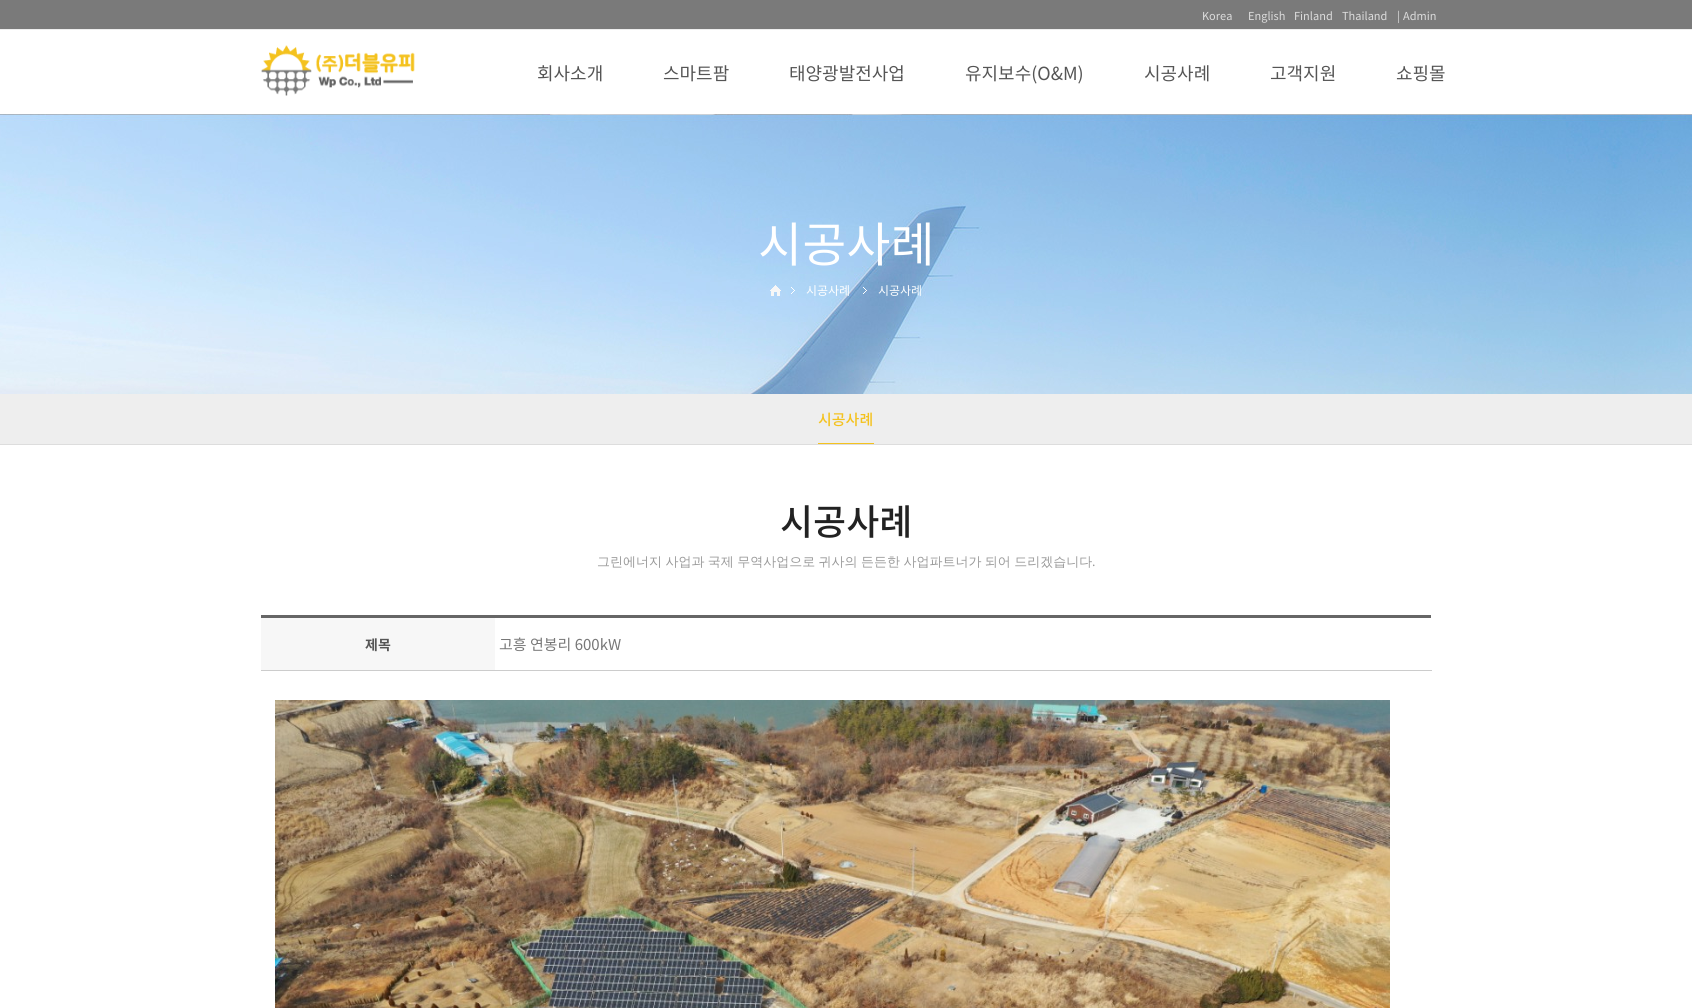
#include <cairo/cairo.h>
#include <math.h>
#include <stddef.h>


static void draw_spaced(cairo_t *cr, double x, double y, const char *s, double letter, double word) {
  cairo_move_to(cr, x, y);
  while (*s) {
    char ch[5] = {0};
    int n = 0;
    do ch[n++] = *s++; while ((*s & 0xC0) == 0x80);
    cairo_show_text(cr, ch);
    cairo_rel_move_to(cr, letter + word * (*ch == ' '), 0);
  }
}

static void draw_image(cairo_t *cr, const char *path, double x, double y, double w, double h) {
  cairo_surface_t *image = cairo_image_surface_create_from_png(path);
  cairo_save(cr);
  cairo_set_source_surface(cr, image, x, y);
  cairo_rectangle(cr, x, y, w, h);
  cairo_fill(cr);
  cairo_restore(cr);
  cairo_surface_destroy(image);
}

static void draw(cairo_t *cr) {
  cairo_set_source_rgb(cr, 1, 1, 1);
  cairo_paint(cr);
  cairo_set_source_rgb(cr, 122 / 255.0, 122 / 255.0, 122 / 255.0);
  cairo_rectangle(cr, 0, 0, 1692, 29);
  cairo_fill(cr);
  cairo_set_source_rgb(cr, 238 / 255.0, 238 / 255.0, 238 / 255.0);
  cairo_rectangle(cr, 0, 29, 1692, 1);
  cairo_fill(cr);
  draw_image(cr, "images/1.png", 261, 45, 154, 51);
  draw_image(cr, "images/2.png", 0, 114, 1692, 280);
  draw_image(cr, "images/3.png", 770, 285, 11, 11);
  draw_image(cr, "images/4.png", 791, 287, 4, 7);
  draw_image(cr, "images/5.png", 863, 287, 4, 7);
  cairo_rectangle(cr, 0, 394, 1692, 50);
  cairo_fill(cr);
  cairo_set_source_rgb(cr, 221 / 255.0, 221 / 255.0, 221 / 255.0);
  cairo_rectangle(cr, 0, 444, 1692, 1);
  cairo_fill(cr);
  cairo_set_source_rgb(cr, 244 / 255.0, 194 / 255.0, 31 / 255.0);
  cairo_rectangle(cr, 818, 443, 56, 1);
  cairo_fill(cr);
  cairo_set_source_rgb(cr, 102 / 255.0, 102 / 255.0, 102 / 255.0);
  cairo_rectangle(cr, 261, 615, 1170, 3);
  cairo_fill(cr);
  cairo_set_source_rgb(cr, 247 / 255.0, 247 / 255.0, 247 / 255.0);
  cairo_rectangle(cr, 261, 618, 234, 52);
  cairo_fill(cr);
  cairo_set_source_rgb(cr, 204 / 255.0, 204 / 255.0, 204 / 255.0);
  cairo_rectangle(cr, 261, 670, 1171, 1);
  cairo_fill(cr);
  draw_image(cr, "images/6.png", 275, 700, 1115, 308);
  cairo_select_font_face(cr, "Noto Sans KR", CAIRO_FONT_SLANT_NORMAL, CAIRO_FONT_WEIGHT_NORMAL);
  cairo_set_font_size(cr, 11);
  cairo_set_source_rgb(cr, 221 / 255.0, 221 / 255.0, 221 / 255.0);
  cairo_move_to(cr, 1202, 20);
  cairo_show_text(cr, "Korea");
  cairo_move_to(cr, 1248, 20);
  cairo_show_text(cr, "English");
  cairo_move_to(cr, 1294, 20);
  cairo_show_text(cr, "Finland");
  cairo_move_to(cr, 1342, 20);
  cairo_show_text(cr, "Thailand");
  cairo_move_to(cr, 1397, 20);
  cairo_show_text(cr, "|");
  cairo_move_to(cr, 1403, 20);
  cairo_show_text(cr, "Admin");
  cairo_set_font_size(cr, 18);
  cairo_set_source_rgb(cr, 85 / 255.0, 85 / 255.0, 85 / 255.0);
  cairo_move_to(cr, 537, 80);
  cairo_show_text(cr, "회사소개");
  cairo_move_to(cr, 663, 80);
  cairo_show_text(cr, "스마트팜");
  cairo_move_to(cr, 789, 80);
  cairo_show_text(cr, "태양광발전사업");
  cairo_move_to(cr, 965, 80);
  cairo_show_text(cr, "유지보수(O&M)");
  cairo_move_to(cr, 1144, 80);
  cairo_show_text(cr, "시공사례");
  cairo_move_to(cr, 1270, 80);
  cairo_show_text(cr, "고객지원");
  cairo_move_to(cr, 1396, 80);
  cairo_show_text(cr, "쇼핑몰");
  cairo_set_font_size(cr, 48);
  cairo_set_source_rgb(cr, 1, 1, 1);
  cairo_move_to(cr, 758, 262);
  cairo_show_text(cr, "시공사례");
  cairo_set_font_size(cr, 12);
  cairo_move_to(cr, 806, 295);
  cairo_show_text(cr, "시공사례");
  cairo_move_to(cr, 878, 295);
  cairo_show_text(cr, "시공사례");
  cairo_select_font_face(cr, "Noto Sans KR Medium", CAIRO_FONT_SLANT_NORMAL, CAIRO_FONT_WEIGHT_NORMAL);
  cairo_set_font_size(cr, 15);
  cairo_set_source_rgb(cr, 244 / 255.0, 194 / 255.0, 31 / 255.0);
  cairo_move_to(cr, 818, 425);
  cairo_show_text(cr, "시공사례");
  cairo_set_font_size(cr, 36);
  cairo_set_source_rgb(cr, 34 / 255.0, 34 / 255.0, 34 / 255.0);
  cairo_move_to(cr, 780, 535);
  cairo_show_text(cr, "시공사례");
  cairo_select_font_face(cr, "WenQuanYi Zen Hei Medium", CAIRO_FONT_SLANT_NORMAL, CAIRO_FONT_WEIGHT_NORMAL);
  cairo_set_font_size(cr, 13);
  cairo_set_source_rgb(cr, 153 / 255.0, 153 / 255.0, 153 / 255.0);
  draw_spaced(cr, 597, 566, "그린에너지 사업과 국제 무역사업으로 귀사의 든든한 사업파트너가 되어 드리겠습니다", 0, -0.5);
  cairo_select_font_face(cr, "Open Sans", CAIRO_FONT_SLANT_NORMAL, CAIRO_FONT_WEIGHT_NORMAL);
  cairo_move_to(cr, 1092, 566);
  cairo_show_text(cr, ".");
  cairo_select_font_face(cr, "Noto Sans KR", CAIRO_FONT_SLANT_NORMAL, CAIRO_FONT_WEIGHT_BOLD);
  cairo_set_font_size(cr, 14);
  cairo_set_source_rgb(cr, 85 / 255.0, 85 / 255.0, 85 / 255.0);
  cairo_move_to(cr, 365, 650);
  cairo_show_text(cr, "제목");
  cairo_select_font_face(cr, "Noto Sans KR", CAIRO_FONT_SLANT_NORMAL, CAIRO_FONT_WEIGHT_NORMAL);
  cairo_set_font_size(cr, 15);
  cairo_set_source_rgb(cr, 119 / 255.0, 119 / 255.0, 119 / 255.0);
  cairo_move_to(cr, 499, 650);
  cairo_show_text(cr, "고흥 연봉리 600kW");
}

int main(void) {
  cairo_surface_t *surface = cairo_image_surface_create(CAIRO_FORMAT_RGB24, 1692, 1008);
  cairo_t *cr = cairo_create(surface);
  cairo_font_options_t *options = cairo_font_options_create();
  cairo_font_options_set_hint_metrics(options, CAIRO_HINT_METRICS_OFF);
  cairo_font_options_set_hint_style(options, CAIRO_HINT_STYLE_NONE);
  cairo_set_font_options(cr, options);
  cairo_set_miter_limit(cr, 4);
  draw(cr);
  cairo_surface_write_to_png(surface, "out.png");
  cairo_font_options_destroy(options);
  cairo_destroy(cr);
  cairo_surface_destroy(surface);
  return 0;
}
